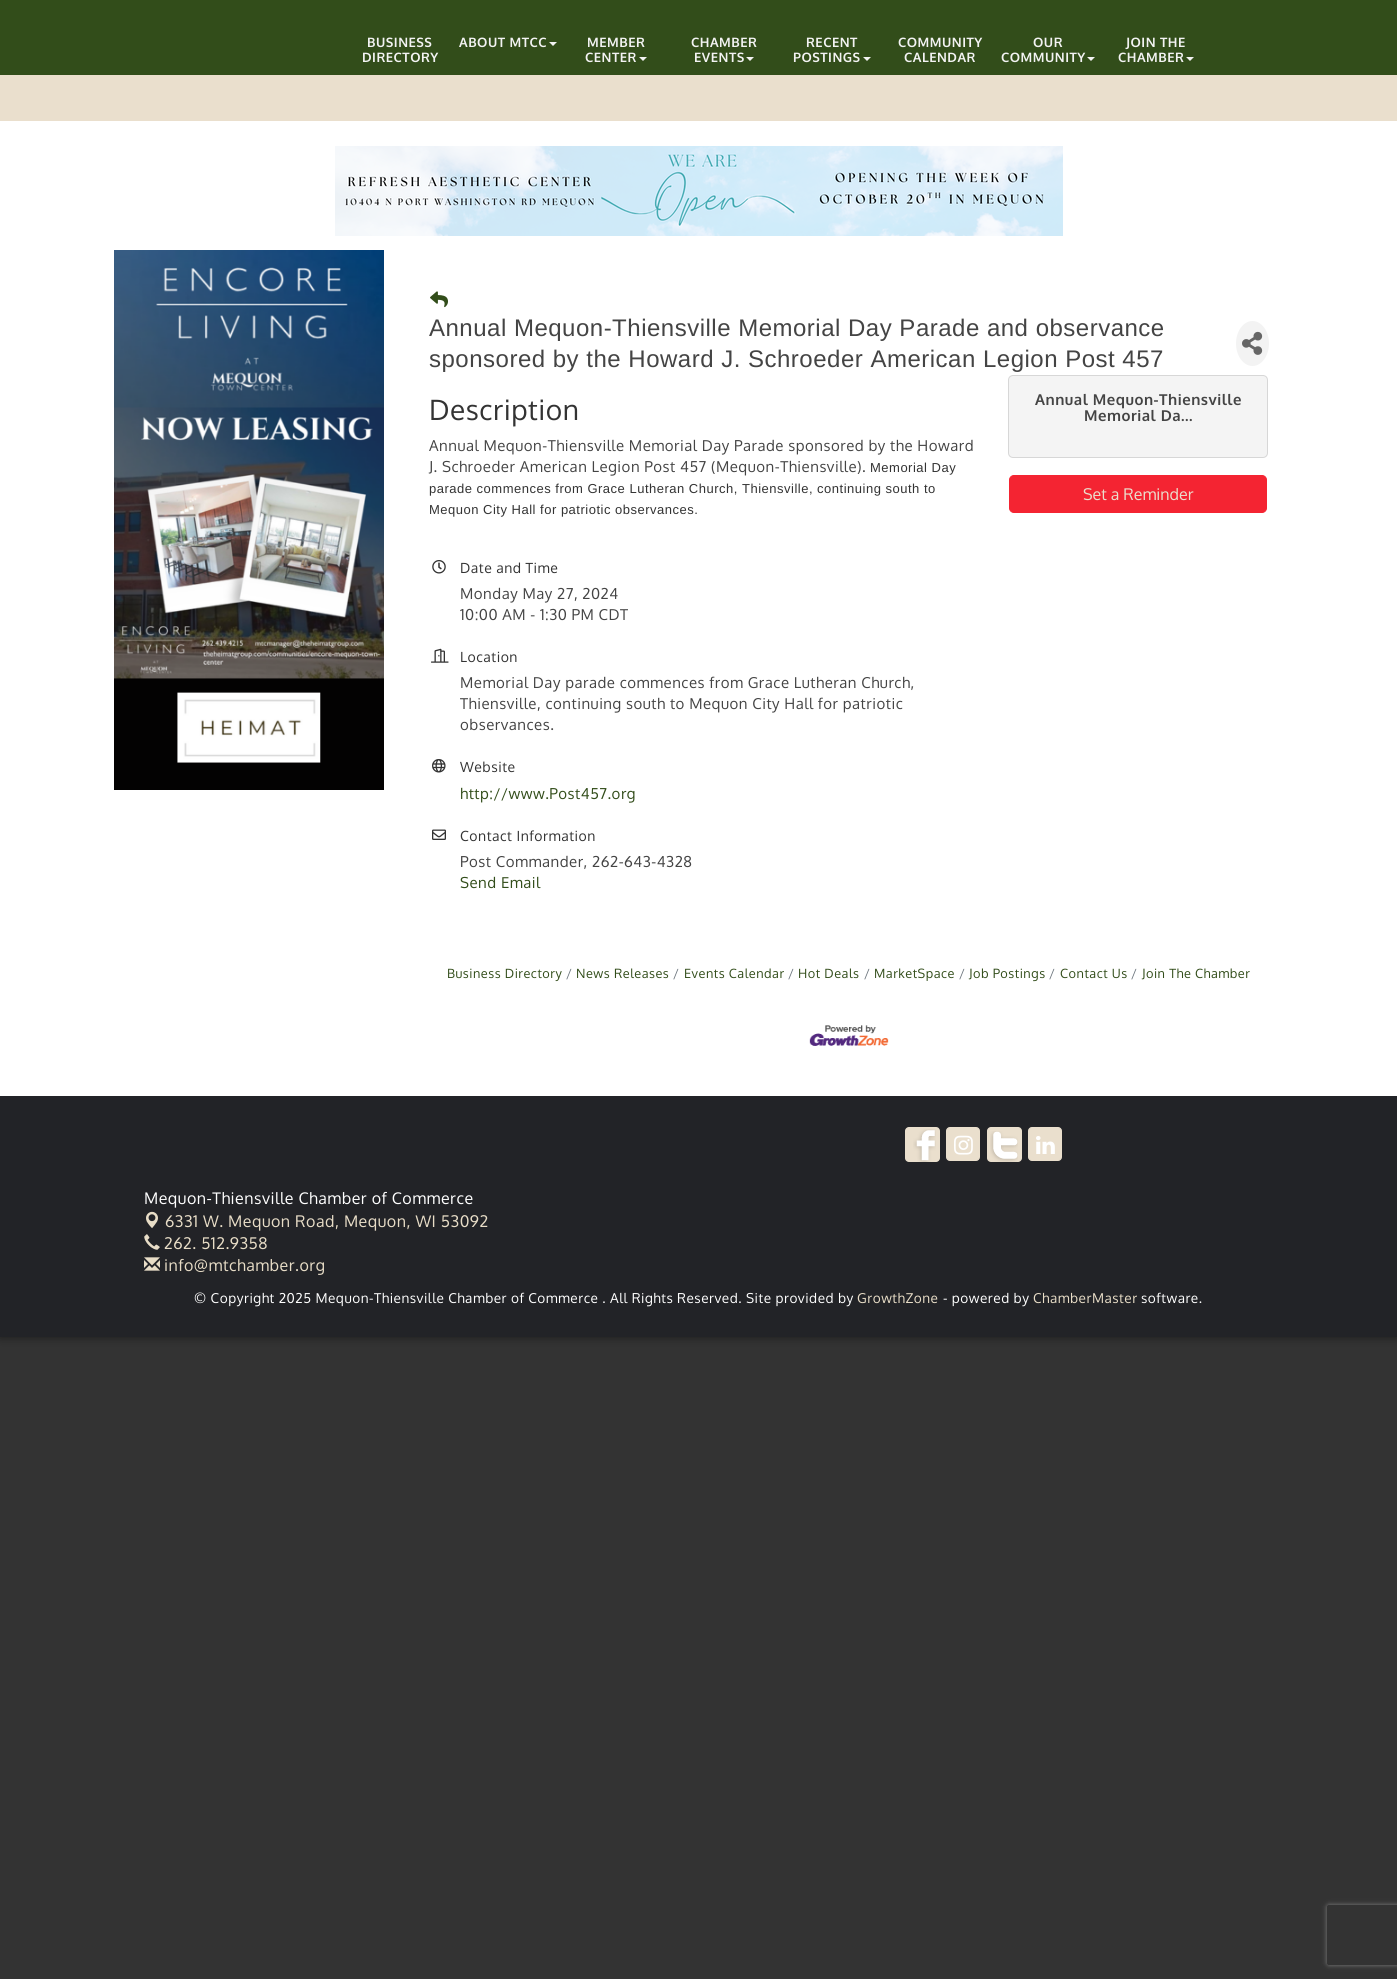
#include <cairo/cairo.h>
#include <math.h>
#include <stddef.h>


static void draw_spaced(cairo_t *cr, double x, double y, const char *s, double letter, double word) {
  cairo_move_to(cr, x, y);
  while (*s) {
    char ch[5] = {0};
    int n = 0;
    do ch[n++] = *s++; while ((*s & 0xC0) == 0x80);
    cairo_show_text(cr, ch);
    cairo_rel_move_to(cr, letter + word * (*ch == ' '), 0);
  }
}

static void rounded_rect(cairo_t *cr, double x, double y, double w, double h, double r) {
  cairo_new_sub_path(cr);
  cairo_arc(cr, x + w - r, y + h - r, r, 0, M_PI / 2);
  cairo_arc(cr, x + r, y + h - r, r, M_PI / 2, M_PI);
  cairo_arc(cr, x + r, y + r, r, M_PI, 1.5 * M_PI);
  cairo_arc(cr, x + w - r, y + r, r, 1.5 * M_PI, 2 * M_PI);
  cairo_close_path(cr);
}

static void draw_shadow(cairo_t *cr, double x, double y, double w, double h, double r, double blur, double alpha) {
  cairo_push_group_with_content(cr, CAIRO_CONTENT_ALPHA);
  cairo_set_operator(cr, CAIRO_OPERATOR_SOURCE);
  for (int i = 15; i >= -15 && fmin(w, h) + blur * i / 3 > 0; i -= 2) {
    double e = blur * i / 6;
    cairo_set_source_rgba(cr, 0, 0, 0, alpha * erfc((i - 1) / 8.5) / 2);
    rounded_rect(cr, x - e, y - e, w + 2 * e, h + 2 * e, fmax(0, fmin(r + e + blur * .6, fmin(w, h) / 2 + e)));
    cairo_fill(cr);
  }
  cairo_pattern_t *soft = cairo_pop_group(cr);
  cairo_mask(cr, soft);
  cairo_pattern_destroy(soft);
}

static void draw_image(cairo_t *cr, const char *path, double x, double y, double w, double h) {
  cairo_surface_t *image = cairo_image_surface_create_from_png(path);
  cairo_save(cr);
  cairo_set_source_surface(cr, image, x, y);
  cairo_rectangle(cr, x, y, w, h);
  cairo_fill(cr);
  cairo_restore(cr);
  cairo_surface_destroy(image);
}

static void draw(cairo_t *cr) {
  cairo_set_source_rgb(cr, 51 / 255.0, 51 / 255.0, 51 / 255.0);
  cairo_paint(cr);
  cairo_set_source_rgb(cr, 0, 0, 0);
  draw_shadow(cr, 0, 0, 1397, 1337, 0, 5, 0.5);
  cairo_set_source_rgb(cr, 50 / 255.0, 77 / 255.0, 26 / 255.0);
  cairo_rectangle(cr, 0, 0, 1397, 75);
  cairo_fill(cr);
  cairo_set_source_rgb(cr, 243 / 255.0, 243 / 255.0, 243 / 255.0);
  cairo_new_path(cr);
  cairo_move_to(cr, 549, 42);
  cairo_line_to(cr, 557, 42);
  cairo_line_to(cr, 553, 46);
  cairo_close_path(cr);
  cairo_fill(cr);
  cairo_new_path(cr);
  cairo_move_to(cr, 639, 57);
  cairo_line_to(cr, 647, 57);
  cairo_line_to(cr, 643, 61);
  cairo_close_path(cr);
  cairo_fill(cr);
  cairo_new_path(cr);
  cairo_move_to(cr, 746, 57);
  cairo_line_to(cr, 754, 57);
  cairo_line_to(cr, 750, 61);
  cairo_close_path(cr);
  cairo_fill(cr);
  cairo_new_path(cr);
  cairo_move_to(cr, 863, 57);
  cairo_line_to(cr, 871, 57);
  cairo_line_to(cr, 867, 61);
  cairo_close_path(cr);
  cairo_fill(cr);
  cairo_new_path(cr);
  cairo_move_to(cr, 1087, 57);
  cairo_line_to(cr, 1095, 57);
  cairo_line_to(cr, 1091, 61);
  cairo_close_path(cr);
  cairo_fill(cr);
  cairo_new_path(cr);
  cairo_move_to(cr, 1186, 57);
  cairo_line_to(cr, 1194, 57);
  cairo_line_to(cr, 1190, 61);
  cairo_close_path(cr);
  cairo_fill(cr);
  cairo_set_source_rgb(cr, 234 / 255.0, 223 / 255.0, 205 / 255.0);
  cairo_rectangle(cr, 0, 75, 1397, 46);
  cairo_fill(cr);
  cairo_set_source_rgb(cr, 1, 1, 1);
  cairo_rectangle(cr, 0, 121, 1397, 975);
  cairo_fill(cr);
  draw_image(cr, "images/1.png", 335, 146, 728, 90);
  draw_image(cr, "images/2.png", 114, 250, 270, 540);
  draw_image(cr, "images/3.png", 430, 291, 18, 17);
  cairo_set_source_rgb(cr, 243 / 255.0, 243 / 255.0, 243 / 255.0);
  cairo_new_path(cr);
  cairo_move_to(cr, 1252.5, 321);
  cairo_curve_to(cr, 1261.5, 321, 1269, 331, 1269, 343.5);
  cairo_curve_to(cr, 1269, 356, 1261.5, 366, 1252.5, 366);
  cairo_curve_to(cr, 1243.5, 366, 1236, 356, 1236, 343.5);
  cairo_curve_to(cr, 1236, 331, 1243.5, 321, 1252.5, 321);
  cairo_close_path(cr);
  cairo_fill(cr);
  draw_image(cr, "images/4.png", 1242, 331, 21, 24);
  draw_image(cr, "images/5.png", 432, 560, 14, 14);
  draw_image(cr, "images/6.png", 431, 648, 18, 15);
  draw_image(cr, "images/7.png", 432, 759, 14, 14);
  draw_image(cr, "images/8.png", 432, 829, 14, 11);
  cairo_set_source_rgb(cr, 244 / 255.0, 244 / 255.0, 244 / 255.0);
  rounded_rect(cr, 1008, 375, 260, 83, 5);
  cairo_fill(cr);
  rounded_rect(cr, 1008.5, 375.5, 259, 82, 4.5);
  cairo_set_source_rgba(cr, 0, 0, 0, 0.12);
  cairo_set_line_width(cr, 1);
  cairo_stroke(cr);
  cairo_set_source_rgb(cr, 244 / 255.0, 36 / 255.0, 50 / 255.0);
  rounded_rect(cr, 1009.5, 475.5, 257, 37, 4.5);
  cairo_fill_preserve(cr);
  cairo_stroke(cr);
  draw_image(cr, "images/9.png", 809, 1025, 80, 21);
  cairo_set_source_rgb(cr, 34 / 255.0, 35 / 255.0, 39 / 255.0);
  cairo_rectangle(cr, 0, 1096, 1397, 241);
  cairo_fill(cr);
  cairo_set_source_rgb(cr, 234 / 255.0, 223 / 255.0, 205 / 255.0);
  rounded_rect(cr, 905, 1127, 35, 35, 4);
  cairo_fill(cr);
  draw_image(cr, "images/10.png", 913, 1129, 23, 33);
  rounded_rect(cr, 946.5, 1127.5, 33, 33, 3.5);
  cairo_fill_preserve(cr);
  cairo_stroke(cr);
  draw_image(cr, "images/11.png", 954, 1135, 19, 20);
  rounded_rect(cr, 987, 1127, 35, 35, 4);
  cairo_fill(cr);
  draw_image(cr, "images/12.png", 990, 1131, 28, 31);
  rounded_rect(cr, 1028.5, 1127.5, 33, 33, 3.5);
  cairo_fill_preserve(cr);
  cairo_stroke(cr);
  draw_image(cr, "images/13.png", 1036, 1136, 19, 18);
  draw_image(cr, "images/14.png", 146, 1211, 12, 18);
  draw_image(cr, "images/15.png", 144, 1234, 16, 16);
  draw_image(cr, "images/16.png", 144, 1257, 16, 14);
  cairo_save(cr);
  cairo_set_fill_rule(cr, CAIRO_FILL_RULE_EVEN_ODD);
  cairo_new_path(cr);
  cairo_move_to(cr, 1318, 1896);
  cairo_line_to(cr, 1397, 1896);
  cairo_line_to(cr, 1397, 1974);
  cairo_line_to(cr, 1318, 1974);
  cairo_close_path(cr);
  cairo_move_to(cr, 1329, 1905);
  cairo_line_to(cr, 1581, 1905);
  cairo_curve_to(cr, 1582, 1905, 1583, 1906, 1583, 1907);
  cairo_line_to(cr, 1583, 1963);
  cairo_curve_to(cr, 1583, 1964, 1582, 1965, 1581, 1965);
  cairo_line_to(cr, 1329, 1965);
  cairo_curve_to(cr, 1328, 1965, 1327, 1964, 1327, 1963);
  cairo_line_to(cr, 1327, 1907);
  cairo_curve_to(cr, 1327, 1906, 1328, 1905, 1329, 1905);
  cairo_close_path(cr);
  cairo_clip(cr);
  cairo_set_source_rgb(cr, 128 / 255.0, 128 / 255.0, 128 / 255.0);
  draw_shadow(cr, 1327, 1905, 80, 60, 2, 2.5, 1);
  cairo_restore(cr);
  cairo_select_font_face(cr, "Oxygen", CAIRO_FONT_SLANT_NORMAL, CAIRO_FONT_WEIGHT_BOLD);
  cairo_set_font_size(cr, 13);
  cairo_set_source_rgb(cr, 243 / 255.0, 243 / 255.0, 243 / 255.0);
  draw_spaced(cr, 367, 47, "BUSINESS", 0.5, 0);
  draw_spaced(cr, 362, 62, "DIRECTORY", 0.5, 0);
  draw_spaced(cr, 459, 47, "ABOUT MTCC", 0.5, 0);
  draw_spaced(cr, 587, 47, "MEMBER", 0.5, 0);
  draw_spaced(cr, 585, 62, "CENTER", 0.5, 0);
  draw_spaced(cr, 691, 47, "CHAMBER", 0.5, 0);
  draw_spaced(cr, 694, 62, "EVENTS", 0.5, 0);
  draw_spaced(cr, 806, 47, "RECENT", 0.5, 0);
  draw_spaced(cr, 793, 62, "POSTINGS", 0.5, 0);
  draw_spaced(cr, 898, 47, "COMMUNITY", 0.5, 0);
  draw_spaced(cr, 904, 62, "CALENDAR", 0.5, 0);
  draw_spaced(cr, 1033, 47, "OUR", 0.5, 0);
  draw_spaced(cr, 1001, 62, "COMMUNITY", 0.5, 0);
  draw_spaced(cr, 1126, 47, "JOIN THE", 0.5, 0);
  draw_spaced(cr, 1118, 62, "CHAMBER", 0.5, 0);
  cairo_select_font_face(cr, "Liberation Sans", CAIRO_FONT_SLANT_NORMAL, CAIRO_FONT_WEIGHT_NORMAL);
  cairo_set_font_size(cr, 24);
  cairo_set_source_rgb(cr, 68 / 255.0, 68 / 255.0, 68 / 255.0);
  draw_spaced(cr, 429, 336, "Annual Mequon-Thiensville Memorial Day Parade and observance", 0.5, 0);
  draw_spaced(cr, 429, 367, "sponsored by the Howard J. Schroeder American Legion Post 457", 0.5, 0);
  cairo_select_font_face(cr, "Oxygen", CAIRO_FONT_SLANT_NORMAL, CAIRO_FONT_WEIGHT_NORMAL);
  cairo_set_font_size(cr, 28);
  cairo_set_source_rgb(cr, 51 / 255.0, 51 / 255.0, 51 / 255.0);
  draw_spaced(cr, 429, 420, "Description", 0.5, 0);
  cairo_set_font_size(cr, 15);
  cairo_set_source_rgb(cr, 68 / 255.0, 68 / 255.0, 68 / 255.0);
  draw_spaced(cr, 429, 451, "Annual Mequon-Thiensville Memorial Day Parade sponsored by the Howard", 0.5, 0);
  draw_spaced(cr, 429, 472, "J. Schroeder American Legion Post 457 (Mequon-Thiensville).", 0.5, 0);
  cairo_select_font_face(cr, "Liberation Sans", CAIRO_FONT_SLANT_NORMAL, CAIRO_FONT_WEIGHT_NORMAL);
  cairo_set_font_size(cr, 13);
  cairo_set_source_rgb(cr, 51 / 255.0, 51 / 255.0, 51 / 255.0);
  draw_spaced(cr, 870, 472, "Memorial Day", 0.5, 0);
  draw_spaced(cr, 429, 493, "parade commences from Grace Lutheran Church, Thiensville, continuing south to", 0.5, 0);
  draw_spaced(cr, 429, 514, "Mequon City Hall for patriotic observances.", 0.5, 0);
  cairo_select_font_face(cr, "Oxygen", CAIRO_FONT_SLANT_NORMAL, CAIRO_FONT_WEIGHT_NORMAL);
  cairo_set_font_size(cr, 14);
  draw_spaced(cr, 460, 573, "Date and Time", 0.5, 0);
  cairo_set_font_size(cr, 15);
  cairo_set_source_rgb(cr, 68 / 255.0, 68 / 255.0, 68 / 255.0);
  draw_spaced(cr, 460, 599, "Monday May 27, 2024", 0.5, 0);
  draw_spaced(cr, 460, 620, "10:00 AM - 1:30 PM CDT", 0.5, 0);
  cairo_set_font_size(cr, 14);
  cairo_set_source_rgb(cr, 51 / 255.0, 51 / 255.0, 51 / 255.0);
  draw_spaced(cr, 460, 662, "Location", 0.5, 0);
  cairo_set_font_size(cr, 15);
  cairo_set_source_rgb(cr, 68 / 255.0, 68 / 255.0, 68 / 255.0);
  draw_spaced(cr, 460, 688, "Memorial Day parade commences from Grace Lutheran Church,", 0.5, 0);
  draw_spaced(cr, 460, 709, "Thiensville, continuing south to Mequon City Hall for patriotic", 0.5, 0);
  draw_spaced(cr, 460, 730, "observances.", 0.5, 0);
  cairo_set_font_size(cr, 14);
  cairo_set_source_rgb(cr, 51 / 255.0, 51 / 255.0, 51 / 255.0);
  draw_spaced(cr, 460, 772, "Website", 0.5, 0);
  cairo_set_font_size(cr, 15);
  cairo_set_source_rgb(cr, 50 / 255.0, 77 / 255.0, 26 / 255.0);
  draw_spaced(cr, 460, 799, "http://www.Post457.org", 0.5, 0);
  cairo_set_font_size(cr, 14);
  cairo_set_source_rgb(cr, 51 / 255.0, 51 / 255.0, 51 / 255.0);
  draw_spaced(cr, 460, 841, "Contact Information", 0.5, 0);
  cairo_set_font_size(cr, 15);
  cairo_set_source_rgb(cr, 68 / 255.0, 68 / 255.0, 68 / 255.0);
  draw_spaced(cr, 460, 867, "Post Commander, 262-643-4328", 0.5, 0);
  cairo_set_source_rgb(cr, 50 / 255.0, 77 / 255.0, 26 / 255.0);
  draw_spaced(cr, 460, 888, "Send Email", 0.5, 0);
  cairo_select_font_face(cr, "Oxygen", CAIRO_FONT_SLANT_NORMAL, CAIRO_FONT_WEIGHT_BOLD);
  cairo_set_source_rgb(cr, 68 / 255.0, 68 / 255.0, 68 / 255.0);
  draw_spaced(cr, 1035, 405, "Annual Mequon-Thiensville", 0.5, 0);
  draw_spaced(cr, 1084, 421, "Memorial Da...", 0.5, 0);
  cairo_select_font_face(cr, "Oxygen", CAIRO_FONT_SLANT_NORMAL, CAIRO_FONT_WEIGHT_NORMAL);
  cairo_set_font_size(cr, 16);
  cairo_set_source_rgb(cr, 234 / 255.0, 223 / 255.0, 205 / 255.0);
  cairo_move_to(cr, 1083, 500);
  cairo_show_text(cr, "Set a Reminder");
  cairo_set_font_size(cr, 12.75);
  cairo_set_source_rgb(cr, 50 / 255.0, 77 / 255.0, 26 / 255.0);
  draw_spaced(cr, 447, 978, "Business Directory", 0.5, 0);
  cairo_set_source_rgb(cr, 108 / 255.0, 117 / 255.0, 125 / 255.0);
  draw_spaced(cr, 566, 978, "/", 0.5, 0);
  cairo_set_source_rgb(cr, 50 / 255.0, 77 / 255.0, 26 / 255.0);
  draw_spaced(cr, 576, 978, "News Releases", 0.5, 0);
  cairo_set_source_rgb(cr, 108 / 255.0, 117 / 255.0, 125 / 255.0);
  draw_spaced(cr, 673, 978, "/", 0.5, 0);
  cairo_set_source_rgb(cr, 50 / 255.0, 77 / 255.0, 26 / 255.0);
  draw_spaced(cr, 684, 978, "Events Calendar", 0.5, 0);
  cairo_set_source_rgb(cr, 108 / 255.0, 117 / 255.0, 125 / 255.0);
  draw_spaced(cr, 788, 978, "/", 0.5, 0);
  cairo_set_source_rgb(cr, 50 / 255.0, 77 / 255.0, 26 / 255.0);
  draw_spaced(cr, 798, 978, "Hot Deals", 0.5, 0);
  cairo_set_source_rgb(cr, 108 / 255.0, 117 / 255.0, 125 / 255.0);
  draw_spaced(cr, 864, 978, "/", 0.5, 0);
  cairo_set_source_rgb(cr, 50 / 255.0, 77 / 255.0, 26 / 255.0);
  draw_spaced(cr, 874, 978, "MarketSpace", 0.5, 0);
  cairo_set_source_rgb(cr, 108 / 255.0, 117 / 255.0, 125 / 255.0);
  draw_spaced(cr, 959, 978, "/", 0.5, 0);
  cairo_set_source_rgb(cr, 50 / 255.0, 77 / 255.0, 26 / 255.0);
  draw_spaced(cr, 969, 978, "Job Postings", 0.5, 0);
  cairo_set_source_rgb(cr, 108 / 255.0, 117 / 255.0, 125 / 255.0);
  draw_spaced(cr, 1049, 978, "/", 0.5, 0);
  cairo_set_source_rgb(cr, 50 / 255.0, 77 / 255.0, 26 / 255.0);
  draw_spaced(cr, 1060, 978, "Contact Us", 0.5, 0);
  cairo_set_source_rgb(cr, 108 / 255.0, 117 / 255.0, 125 / 255.0);
  draw_spaced(cr, 1131, 978, "/", 0.5, 0);
  cairo_set_source_rgb(cr, 50 / 255.0, 77 / 255.0, 26 / 255.0);
  draw_spaced(cr, 1142, 978, "Join The Chamber", 0.5, 0);
  cairo_set_font_size(cr, 16);
  cairo_set_source_rgb(cr, 1, 1, 1);
  draw_spaced(cr, 144, 1204, "Mequon-Thiensville Chamber of Commerce", 0.5, 0);
  cairo_set_source_rgb(cr, 232 / 255.0, 221 / 255.0, 199 / 255.0);
  draw_spaced(cr, 165, 1227, "6331 W. Mequon Road, Mequon, WI 53092", 0.5, 0);
  draw_spaced(cr, 164, 1249, "262. 512.9358", 0.5, 0);
  draw_spaced(cr, 164, 1271, "info@mtchamber.org", 0.5, 0);
  cairo_set_font_size(cr, 13.6);
  cairo_set_source_rgb(cr, 1, 1, 1);
  draw_spaced(cr, 194, 1303, "© Copyright 2025 Mequon-Thiensville Chamber of Commerce . All Rights Reserved. Site provided by", 0.5, 0);
  cairo_set_source_rgb(cr, 232 / 255.0, 221 / 255.0, 199 / 255.0);
  draw_spaced(cr, 857, 1303, "GrowthZone", 0.5, 0);
  cairo_set_source_rgb(cr, 1, 1, 1);
  draw_spaced(cr, 943, 1303, "- powered by", 0.5, 0);
  cairo_set_source_rgb(cr, 232 / 255.0, 221 / 255.0, 199 / 255.0);
  draw_spaced(cr, 1033, 1303, "ChamberMaster", 0.5, 0);
  cairo_set_source_rgb(cr, 1, 1, 1);
  draw_spaced(cr, 1141, 1303, "software.", 0.5, 0);
}

int main(void) {
  cairo_surface_t *surface = cairo_image_surface_create(CAIRO_FORMAT_RGB24, 1397, 1979);
  cairo_t *cr = cairo_create(surface);
  cairo_font_options_t *options = cairo_font_options_create();
  cairo_font_options_set_hint_metrics(options, CAIRO_HINT_METRICS_OFF);
  cairo_font_options_set_hint_style(options, CAIRO_HINT_STYLE_NONE);
  cairo_set_font_options(cr, options);
  cairo_set_miter_limit(cr, 4);
  draw(cr);
  cairo_surface_write_to_png(surface, "out.png");
  cairo_font_options_destroy(options);
  cairo_destroy(cr);
  cairo_surface_destroy(surface);
  return 0;
}
